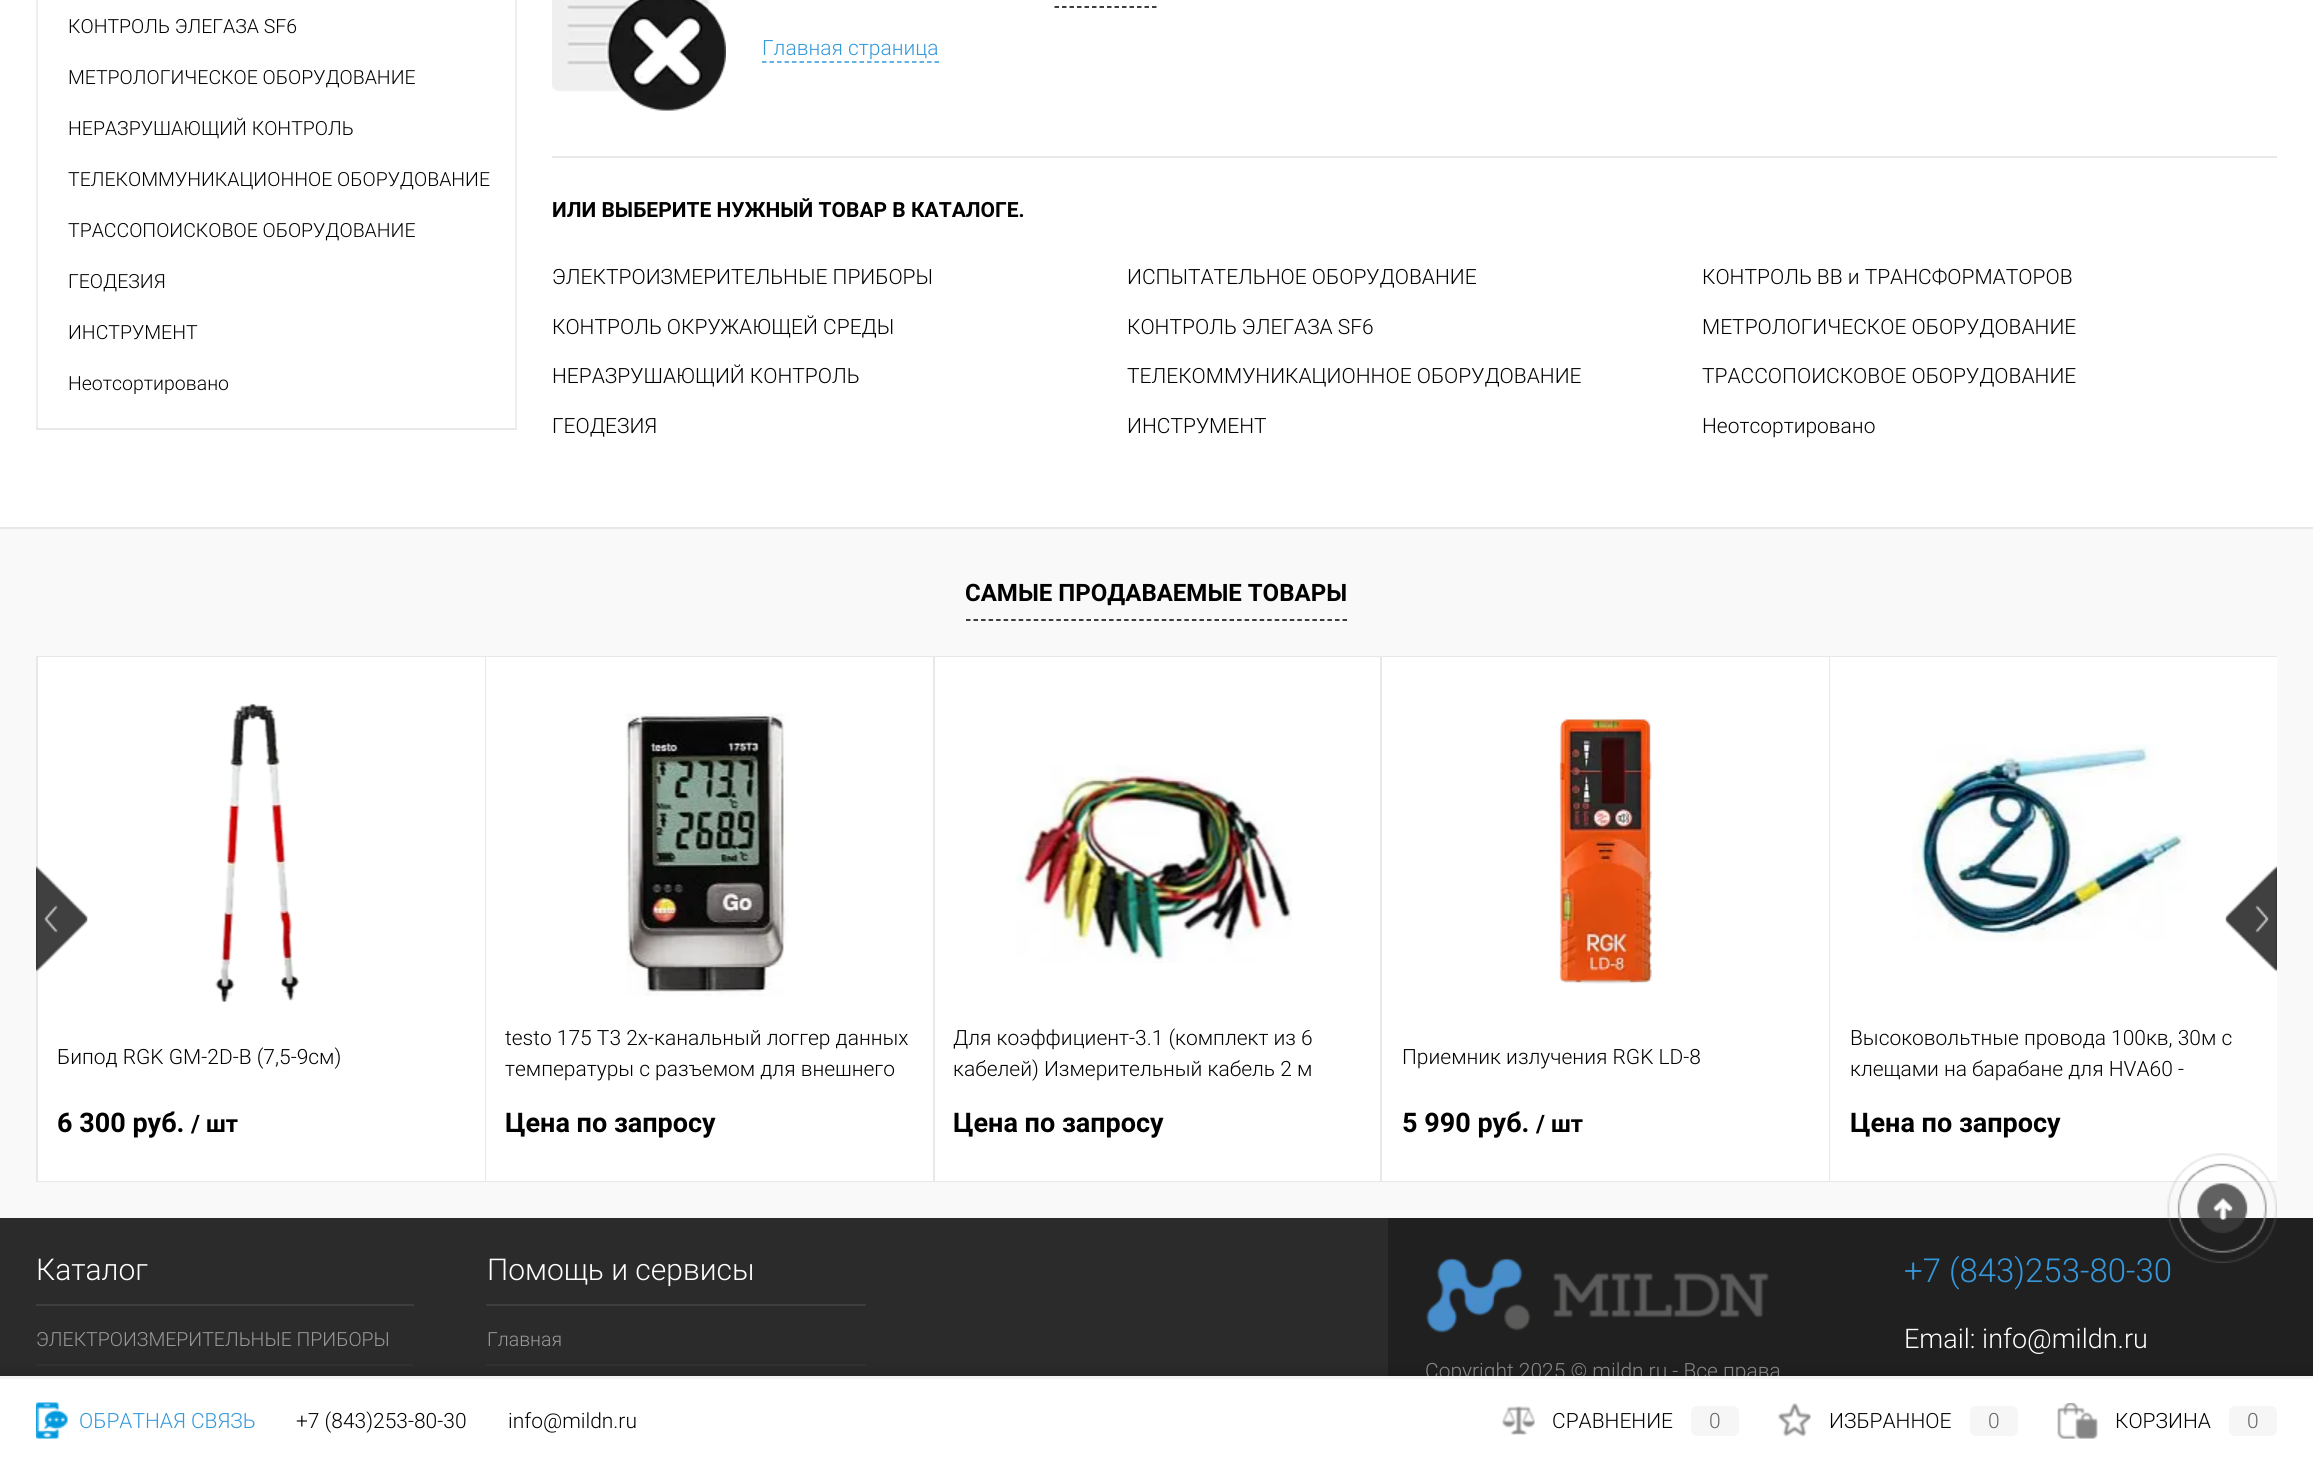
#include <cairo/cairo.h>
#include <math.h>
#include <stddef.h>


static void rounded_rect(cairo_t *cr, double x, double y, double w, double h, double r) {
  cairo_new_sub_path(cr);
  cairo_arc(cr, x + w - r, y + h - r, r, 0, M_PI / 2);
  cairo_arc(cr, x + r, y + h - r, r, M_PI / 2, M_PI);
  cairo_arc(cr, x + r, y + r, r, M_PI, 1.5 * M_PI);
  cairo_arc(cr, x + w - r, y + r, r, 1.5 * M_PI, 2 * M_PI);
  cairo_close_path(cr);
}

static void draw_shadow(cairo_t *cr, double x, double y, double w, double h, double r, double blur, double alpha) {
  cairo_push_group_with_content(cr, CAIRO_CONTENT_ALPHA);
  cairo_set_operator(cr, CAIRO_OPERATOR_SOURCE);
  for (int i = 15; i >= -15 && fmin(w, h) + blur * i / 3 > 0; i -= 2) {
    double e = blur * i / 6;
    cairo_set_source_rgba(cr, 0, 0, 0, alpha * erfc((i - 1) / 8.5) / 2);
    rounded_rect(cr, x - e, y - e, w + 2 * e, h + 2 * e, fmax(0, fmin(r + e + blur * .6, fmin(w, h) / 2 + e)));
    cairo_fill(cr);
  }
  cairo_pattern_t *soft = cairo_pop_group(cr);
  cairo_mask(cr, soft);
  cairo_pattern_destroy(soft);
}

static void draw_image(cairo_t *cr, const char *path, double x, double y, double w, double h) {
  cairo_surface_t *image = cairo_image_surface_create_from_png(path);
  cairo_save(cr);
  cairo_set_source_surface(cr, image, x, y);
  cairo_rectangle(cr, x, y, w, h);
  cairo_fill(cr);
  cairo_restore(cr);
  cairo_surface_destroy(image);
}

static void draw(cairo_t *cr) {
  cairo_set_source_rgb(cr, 1, 1, 1);
  cairo_paint(cr);
  cairo_set_source_rgb(cr, 238 / 255.0, 238 / 255.0, 238 / 255.0);
  cairo_rectangle(cr, 515, 0, 2, 428);
  cairo_fill(cr);
  cairo_rectangle(cr, 36, 0, 2, 428);
  cairo_fill(cr);
  cairo_set_source_rgb(cr, 231 / 255.0, 232 / 255.0, 234 / 255.0);
  cairo_rectangle(cr, 36, 428, 481, 2);
  cairo_fill(cr);
  cairo_rectangle(cr, 552, 156, 1725, 2);
  cairo_fill(cr);
  draw_image(cr, "images/1.png", 552, 0, 174, 111);
  cairo_new_path(cr);
  cairo_move_to(cr, 1054.5, 7);
  cairo_line_to(cr, 1156.5, 7);
  cairo_set_source_rgb(cr, 0, 0, 0);
  cairo_set_line_width(cr, 1.5);
  cairo_set_dash(cr, (double[]){4.5, 3}, 2, 0);
  cairo_stroke(cr);
  cairo_new_path(cr);
  cairo_move_to(cr, 762, 62);
  cairo_line_to(cr, 939, 62);
  cairo_set_source_rgb(cr, 52 / 255.0, 152 / 255.0, 219 / 255.0);
  cairo_stroke(cr);
  cairo_set_source_rgb(cr, 249 / 255.0, 249 / 255.0, 249 / 255.0);
  cairo_rectangle(cr, 0, 529, 2313, 689);
  cairo_fill(cr);
  cairo_set_source_rgb(cr, 231 / 255.0, 232 / 255.0, 234 / 255.0);
  cairo_rectangle(cr, 0, 527, 2313, 2);
  cairo_fill(cr);
  cairo_new_path(cr);
  cairo_move_to(cr, 966, 620);
  cairo_line_to(cr, 1347, 620);
  cairo_set_source_rgb(cr, 0, 0, 0);
  cairo_set_dash(cr, (double[]){4.5, 3.03}, 2, 0);
  cairo_stroke(cr);
  cairo_set_source_rgb(cr, 231 / 255.0, 232 / 255.0, 234 / 255.0);
  cairo_rectangle(cr, 36, 656, 2, 526);
  cairo_fill(cr);
  cairo_set_source_rgb(cr, 1, 1, 1);
  cairo_rectangle(cr, 38, 657, 447, 524);
  cairo_fill(cr);
  draw_image(cr, "images/2.png", 36, 866, 52, 106);
  cairo_rectangle(cr, 1830, 657, 447, 524);
  cairo_fill(cr);
  draw_image(cr, "images/3.png", 2225, 866, 52, 106);
  cairo_set_source_rgb(cr, 231 / 255.0, 232 / 255.0, 234 / 255.0);
  cairo_rectangle(cr, 38, 656, 2239, 1);
  cairo_fill(cr);
  cairo_rectangle(cr, 485, 656, 1, 526);
  cairo_fill(cr);
  cairo_rectangle(cr, 38, 1181, 448, 1);
  cairo_fill(cr);
  draw_image(cr, "images/4.png", 215, 703, 85, 299);
  cairo_rectangle(cr, 933, 656, 2, 526);
  cairo_fill(cr);
  cairo_rectangle(cr, 486, 1181, 449, 1);
  cairo_fill(cr);
  cairo_set_source_rgb(cr, 1, 1, 1);
  cairo_rectangle(cr, 486, 657, 447, 524);
  cairo_fill(cr);
  draw_image(cr, "images/5.png", 626, 713, 163, 283);
  cairo_set_source_rgb(cr, 231 / 255.0, 232 / 255.0, 234 / 255.0);
  cairo_rectangle(cr, 1380, 656, 2, 526);
  cairo_fill(cr);
  cairo_rectangle(cr, 935, 1181, 447, 1);
  cairo_fill(cr);
  cairo_set_source_rgb(cr, 1, 1, 1);
  cairo_rectangle(cr, 935, 657, 445, 524);
  cairo_fill(cr);
  draw_image(cr, "images/6.png", 1016, 765, 276, 198);
  cairo_set_source_rgb(cr, 231 / 255.0, 232 / 255.0, 234 / 255.0);
  cairo_rectangle(cr, 1829, 656, 1, 526);
  cairo_fill(cr);
  cairo_rectangle(cr, 1382, 1181, 895, 1);
  cairo_fill(cr);
  cairo_set_source_rgb(cr, 1, 1, 1);
  cairo_rectangle(cr, 1382, 657, 447, 524);
  cairo_fill(cr);
  draw_image(cr, "images/7.png", 1559, 719, 93, 265);
  draw_image(cr, "images/8.png", 1912, 744, 275, 197);
  cairo_set_source_rgb(cr, 43 / 255.0, 43 / 255.0, 43 / 255.0);
  cairo_rectangle(cr, 0, 1218, 1388, 158);
  cairo_fill(cr);
  cairo_set_source_rgb(cr, 62 / 255.0, 62 / 255.0, 62 / 255.0);
  cairo_rectangle(cr, 36, 1304, 378, 2);
  cairo_fill(cr);
  cairo_set_source_rgb(cr, 49 / 255.0, 49 / 255.0, 49 / 255.0);
  cairo_rectangle(cr, 36, 1364, 378, 2);
  cairo_fill(cr);
  cairo_set_source_rgb(cr, 62 / 255.0, 62 / 255.0, 62 / 255.0);
  cairo_rectangle(cr, 486, 1304, 380, 2);
  cairo_fill(cr);
  cairo_set_source_rgb(cr, 49 / 255.0, 49 / 255.0, 49 / 255.0);
  cairo_rectangle(cr, 486, 1364, 380, 2);
  cairo_fill(cr);
  cairo_set_source_rgb(cr, 32 / 255.0, 32 / 255.0, 32 / 255.0);
  cairo_rectangle(cr, 1388, 1218, 925, 158);
  cairo_fill(cr);
  draw_image(cr, "images/10.png", 1426, 1258, 343, 75);
  cairo_set_source_rgb(cr, 0, 0, 0);
  draw_shadow(cr, 2, 1377, 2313, 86, 0, 9, 0.25);
  cairo_select_font_face(cr, "Roboto Light", CAIRO_FONT_SLANT_NORMAL, CAIRO_FONT_WEIGHT_NORMAL);
  cairo_set_font_size(cr, 19.5);
  cairo_set_source_rgb(cr, 0, 0, 0);
  cairo_move_to(cr, 68, 33);
  cairo_show_text(cr, "КОНТРОЛЬ ЭЛЕГАЗА SF6");
  cairo_move_to(cr, 68, 84);
  cairo_show_text(cr, "МЕТРОЛОГИЧЕСКОЕ ОБОРУДОВАНИЕ");
  cairo_move_to(cr, 68, 135);
  cairo_show_text(cr, "НЕРАЗРУШАЮЩИЙ КОНТРОЛЬ");
  cairo_move_to(cr, 68, 186);
  cairo_show_text(cr, "ТЕЛЕКОММУНИКАЦИОННОЕ ОБОРУДОВАНИЕ");
  cairo_move_to(cr, 68, 237);
  cairo_show_text(cr, "ТРАССОПОИСКОВОЕ ОБОРУДОВАНИЕ");
  cairo_move_to(cr, 68, 288);
  cairo_show_text(cr, "ГЕОДЕЗИЯ");
  cairo_move_to(cr, 68, 339);
  cairo_show_text(cr, "ИНСТРУМЕНТ");
  cairo_move_to(cr, 68, 390);
  cairo_show_text(cr, "Неотсортировано");
  cairo_set_font_size(cr, 21);
  cairo_set_source_rgb(cr, 52 / 255.0, 152 / 255.0, 219 / 255.0);
  cairo_move_to(cr, 762, 55);
  cairo_show_text(cr, "Главная страница");
  cairo_select_font_face(cr, "Roboto", CAIRO_FONT_SLANT_NORMAL, CAIRO_FONT_WEIGHT_BOLD);
  cairo_set_source_rgb(cr, 0, 0, 0);
  cairo_move_to(cr, 552, 217);
  cairo_show_text(cr, "ИЛИ ВЫБЕРИТЕ НУЖНЫЙ ТОВАР В КАТАЛОГЕ.");
  cairo_select_font_face(cr, "Roboto Light", CAIRO_FONT_SLANT_NORMAL, CAIRO_FONT_WEIGHT_NORMAL);
  cairo_move_to(cr, 552, 284);
  cairo_show_text(cr, "ЭЛЕКТРОИЗМЕРИТЕЛЬНЫЕ ПРИБОРЫ");
  cairo_move_to(cr, 1127, 284);
  cairo_show_text(cr, "ИСПЫТАТЕЛЬНОЕ ОБОРУДОВАНИЕ");
  cairo_move_to(cr, 1702, 284);
  cairo_show_text(cr, "КОНТРОЛЬ ВВ и ТРАНСФОРМАТОРОВ");
  cairo_move_to(cr, 552, 334);
  cairo_show_text(cr, "КОНТРОЛЬ ОКРУЖАЮЩЕЙ СРЕДЫ");
  cairo_move_to(cr, 1127, 334);
  cairo_show_text(cr, "КОНТРОЛЬ ЭЛЕГАЗА SF6");
  cairo_move_to(cr, 1702, 334);
  cairo_show_text(cr, "МЕТРОЛОГИЧЕСКОЕ ОБОРУДОВАНИЕ");
  cairo_move_to(cr, 552, 383);
  cairo_show_text(cr, "НЕРАЗРУШАЮЩИЙ КОНТРОЛЬ");
  cairo_move_to(cr, 1127, 383);
  cairo_show_text(cr, "ТЕЛЕКОММУНИКАЦИОННОЕ ОБОРУДОВАНИЕ");
  cairo_move_to(cr, 1702, 383);
  cairo_show_text(cr, "ТРАССОПОИСКОВОЕ ОБОРУДОВАНИЕ");
  cairo_move_to(cr, 552, 433);
  cairo_show_text(cr, "ГЕОДЕЗИЯ");
  cairo_move_to(cr, 1127, 433);
  cairo_show_text(cr, "ИНСТРУМЕНТ");
  cairo_move_to(cr, 1702, 433);
  cairo_show_text(cr, "Неотсортировано");
  cairo_select_font_face(cr, "Roboto", CAIRO_FONT_SLANT_NORMAL, CAIRO_FONT_WEIGHT_BOLD);
  cairo_set_font_size(cr, 24);
  cairo_move_to(cr, 965, 601);
  cairo_show_text(cr, "САМЫЕ ПРОДАВАЕМЫЕ ТОВАРЫ");
  cairo_select_font_face(cr, "Roboto Light", CAIRO_FONT_SLANT_NORMAL, CAIRO_FONT_WEIGHT_NORMAL);
  cairo_set_font_size(cr, 21);
  cairo_move_to(cr, 57, 1064);
  cairo_show_text(cr, "Бипод RGK GM-2D-B (7,5-9см)");
  cairo_select_font_face(cr, "Roboto", CAIRO_FONT_SLANT_NORMAL, CAIRO_FONT_WEIGHT_BOLD);
  cairo_set_font_size(cr, 27);
  cairo_move_to(cr, 57, 1132);
  cairo_show_text(cr, "6 300 руб.");
  cairo_set_font_size(cr, 24);
  cairo_move_to(cr, 191, 1132);
  cairo_show_text(cr, "/ шт");
  cairo_select_font_face(cr, "Roboto Light", CAIRO_FONT_SLANT_NORMAL, CAIRO_FONT_WEIGHT_NORMAL);
  cairo_set_font_size(cr, 21);
  cairo_move_to(cr, 505, 1045);
  cairo_show_text(cr, "testo 175 T3 2х-канальный логгер данных");
  cairo_move_to(cr, 505, 1076);
  cairo_show_text(cr, "температуры с разъемом для внешнего");
  cairo_select_font_face(cr, "Roboto", CAIRO_FONT_SLANT_NORMAL, CAIRO_FONT_WEIGHT_BOLD);
  cairo_set_font_size(cr, 27);
  cairo_move_to(cr, 505, 1132);
  cairo_show_text(cr, "Цена по запросу");
  cairo_select_font_face(cr, "Roboto Light", CAIRO_FONT_SLANT_NORMAL, CAIRO_FONT_WEIGHT_NORMAL);
  cairo_set_font_size(cr, 21);
  cairo_move_to(cr, 953, 1045);
  cairo_show_text(cr, "Для коэффициент-3.1 (комплект из 6");
  cairo_move_to(cr, 953, 1076);
  cairo_show_text(cr, "кабелей) Измерительный кабель 2 м");
  cairo_select_font_face(cr, "Roboto", CAIRO_FONT_SLANT_NORMAL, CAIRO_FONT_WEIGHT_BOLD);
  cairo_set_font_size(cr, 27);
  cairo_move_to(cr, 953, 1132);
  cairo_show_text(cr, "Цена по запросу");
  cairo_select_font_face(cr, "Roboto Light", CAIRO_FONT_SLANT_NORMAL, CAIRO_FONT_WEIGHT_NORMAL);
  cairo_set_font_size(cr, 21);
  cairo_move_to(cr, 1402, 1064);
  cairo_show_text(cr, "Приемник излучения RGK LD-8");
  cairo_select_font_face(cr, "Roboto", CAIRO_FONT_SLANT_NORMAL, CAIRO_FONT_WEIGHT_BOLD);
  cairo_set_font_size(cr, 27);
  cairo_move_to(cr, 1402, 1132);
  cairo_show_text(cr, "5 990 руб.");
  cairo_set_font_size(cr, 24);
  cairo_move_to(cr, 1536, 1132);
  cairo_show_text(cr, "/ шт");
  cairo_select_font_face(cr, "Roboto Light", CAIRO_FONT_SLANT_NORMAL, CAIRO_FONT_WEIGHT_NORMAL);
  cairo_set_font_size(cr, 21);
  cairo_move_to(cr, 1850, 1045);
  cairo_show_text(cr, "Высоковольтные провода 100кв, 30м с");
  cairo_move_to(cr, 1850, 1076);
  cairo_show_text(cr, "клещами на барабане для HVA60 -");
  cairo_select_font_face(cr, "Roboto", CAIRO_FONT_SLANT_NORMAL, CAIRO_FONT_WEIGHT_BOLD);
  cairo_set_font_size(cr, 27);
  cairo_move_to(cr, 1850, 1132);
  cairo_show_text(cr, "Цена по запросу");
  cairo_select_font_face(cr, "Roboto Light", CAIRO_FONT_SLANT_NORMAL, CAIRO_FONT_WEIGHT_NORMAL);
  cairo_set_font_size(cr, 30);
  cairo_set_source_rgb(cr, 1, 1, 1);
  cairo_move_to(cr, 36, 1280);
  cairo_show_text(cr, "Каталог");
  cairo_set_font_size(cr, 19.5);
  cairo_set_source_rgb(cr, 153 / 255.0, 153 / 255.0, 153 / 255.0);
  cairo_move_to(cr, 36, 1346);
  cairo_show_text(cr, "ЭЛЕКТРОИЗМЕРИТЕЛЬНЫЕ ПРИБОРЫ");
  cairo_set_font_size(cr, 30);
  cairo_set_source_rgb(cr, 1, 1, 1);
  cairo_move_to(cr, 487, 1280);
  cairo_show_text(cr, "Помощь и сервисы");
  cairo_set_font_size(cr, 19.5);
  cairo_set_source_rgb(cr, 153 / 255.0, 153 / 255.0, 153 / 255.0);
  cairo_move_to(cr, 487, 1346);
  cairo_show_text(cr, "Главная");
  cairo_set_font_size(cr, 33);
  cairo_set_source_rgb(cr, 52 / 255.0, 152 / 255.0, 219 / 255.0);
  cairo_move_to(cr, 1904, 1282);
  cairo_show_text(cr, "+7 (843)253-80-30");
  draw_image(cr, "images/9.png", 2167, 1153, 110, 110);
  cairo_set_font_size(cr, 27);
  cairo_set_source_rgb(cr, 1, 1, 1);
  cairo_move_to(cr, 1904, 1348);
  cairo_show_text(cr, "Email: info@mildn.ru");
  cairo_set_font_size(cr, 21);
  cairo_set_source_rgb(cr, 136 / 255.0, 136 / 255.0, 136 / 255.0);
  cairo_move_to(cr, 1425, 1378);
  cairo_show_text(cr, "Copyright 2025 © mildn.ru - Все права");
  cairo_set_source_rgb(cr, 1, 1, 1);
  cairo_rectangle(cr, 0, 1379, 2313, 82);
  cairo_fill(cr);
  cairo_set_source_rgb(cr, 243 / 255.0, 243 / 255.0, 243 / 255.0);
  cairo_rectangle(cr, 0, 1376, 2313, 3);
  cairo_fill(cr);
  draw_image(cr, "images/11.png", 36, 1402, 32, 37);
  cairo_set_source_rgb(cr, 52 / 255.0, 152 / 255.0, 219 / 255.0);
  cairo_move_to(cr, 79, 1428);
  cairo_show_text(cr, "ОБРАТНАЯ СВЯЗЬ");
  cairo_set_source_rgb(cr, 0, 0, 0);
  cairo_move_to(cr, 296, 1428);
  cairo_show_text(cr, "+7 (843)253-80-30");
  cairo_move_to(cr, 508, 1428);
  cairo_show_text(cr, "info@mildn.ru");
  draw_image(cr, "images/12.png", 1502, 1406, 33, 29);
  cairo_move_to(cr, 1552, 1428);
  cairo_show_text(cr, "СРАВНЕНИЕ");
  cairo_set_source_rgb(cr, 246 / 255.0, 246 / 255.0, 246 / 255.0);
  rounded_rect(cr, 1691, 1406, 48, 30, 6);
  cairo_fill(cr);
  cairo_set_source_rgb(cr, 102 / 255.0, 102 / 255.0, 102 / 255.0);
  cairo_move_to(cr, 1709, 1428);
  cairo_show_text(cr, "0");
  draw_image(cr, "images/13.png", 1778, 1403, 33, 34);
  cairo_set_source_rgb(cr, 0, 0, 0);
  cairo_move_to(cr, 1829, 1428);
  cairo_show_text(cr, "ИЗБРАННОЕ");
  cairo_set_source_rgb(cr, 246 / 255.0, 246 / 255.0, 246 / 255.0);
  rounded_rect(cr, 1970, 1406, 48, 30, 6);
  cairo_fill(cr);
  cairo_set_source_rgb(cr, 102 / 255.0, 102 / 255.0, 102 / 255.0);
  cairo_move_to(cr, 1988, 1428);
  cairo_show_text(cr, "0");
  draw_image(cr, "images/14.png", 2057, 1403, 41, 36);
  cairo_set_source_rgb(cr, 0, 0, 0);
  cairo_move_to(cr, 2115, 1428);
  cairo_show_text(cr, "КОРЗИНА");
  cairo_set_source_rgb(cr, 246 / 255.0, 246 / 255.0, 246 / 255.0);
  rounded_rect(cr, 2229, 1406, 48, 30, 6);
  cairo_fill(cr);
  cairo_set_source_rgb(cr, 102 / 255.0, 102 / 255.0, 102 / 255.0);
  cairo_move_to(cr, 2247, 1428);
  cairo_show_text(cr, "0");
}

int main(void) {
  cairo_surface_t *surface = cairo_image_surface_create(CAIRO_FORMAT_RGB24, 2313, 1461);
  cairo_t *cr = cairo_create(surface);
  cairo_font_options_t *options = cairo_font_options_create();
  cairo_font_options_set_hint_metrics(options, CAIRO_HINT_METRICS_OFF);
  cairo_font_options_set_hint_style(options, CAIRO_HINT_STYLE_NONE);
  cairo_set_font_options(cr, options);
  cairo_set_miter_limit(cr, 4);
  draw(cr);
  cairo_surface_write_to_png(surface, "out.png");
  cairo_font_options_destroy(options);
  cairo_destroy(cr);
  cairo_surface_destroy(surface);
  return 0;
}
